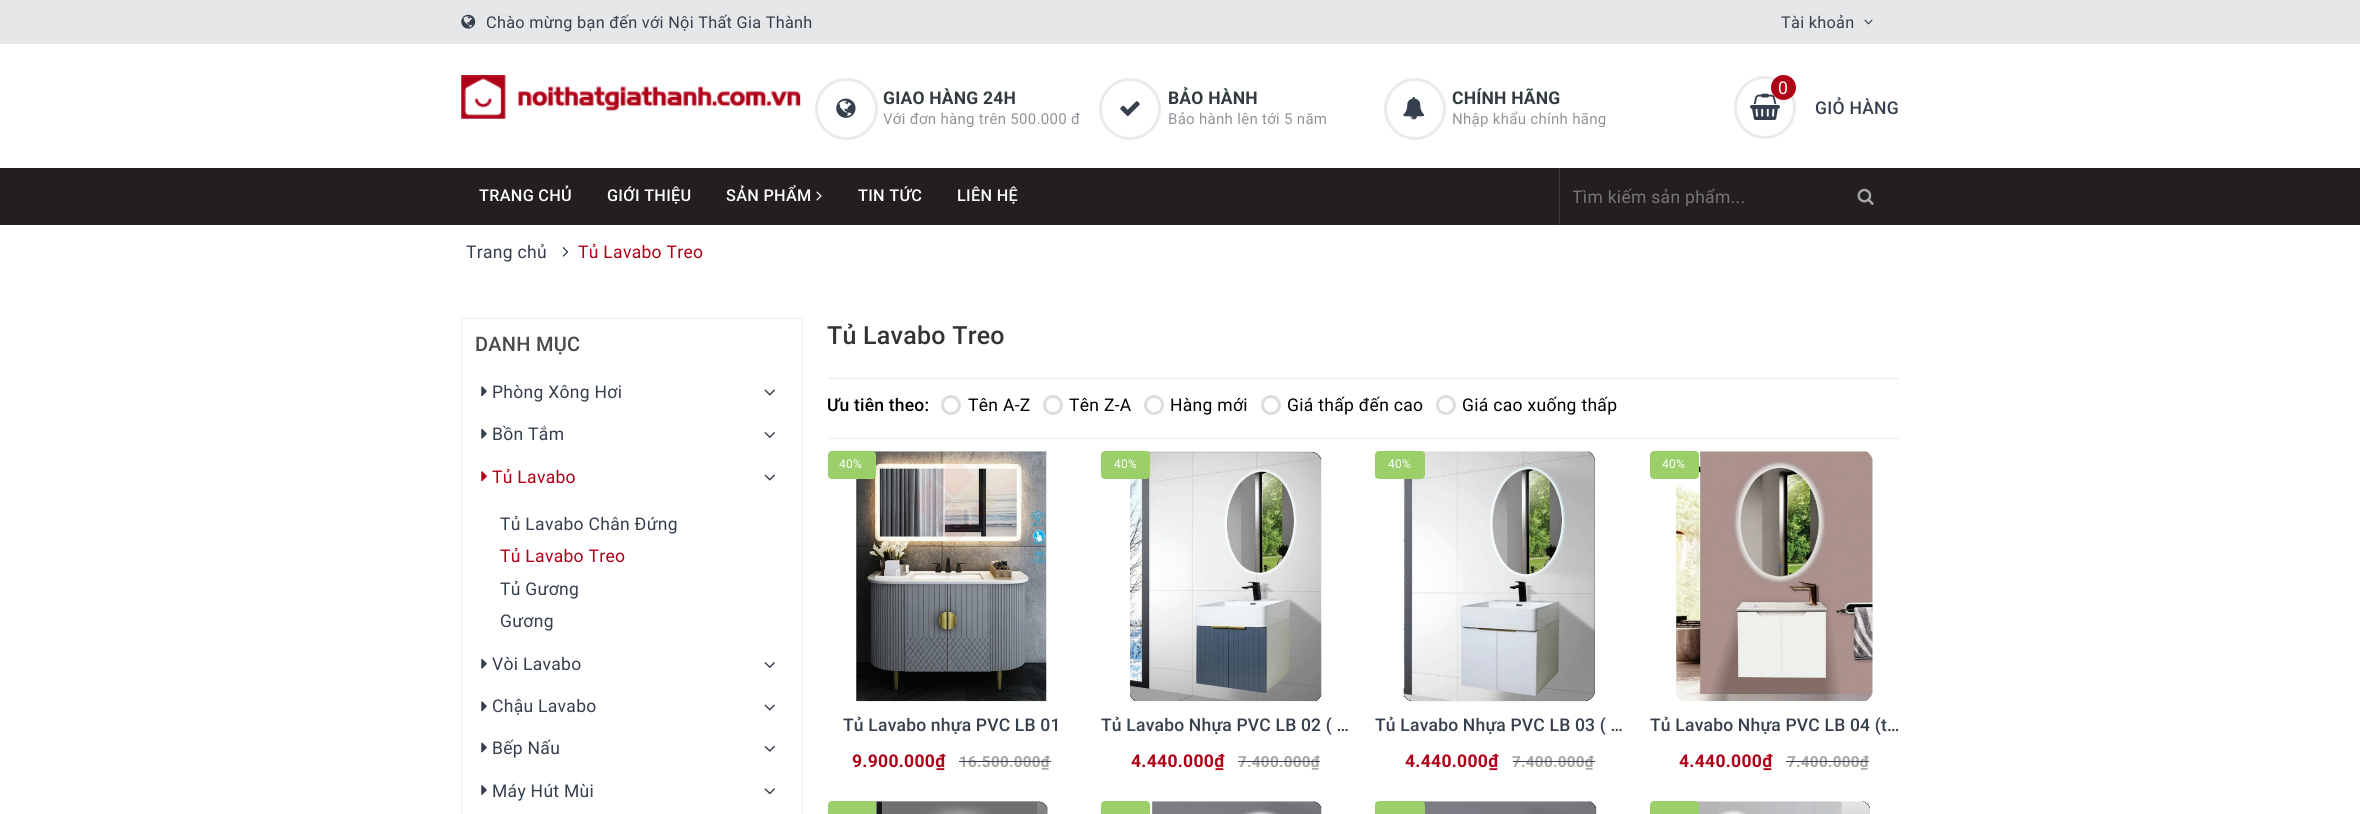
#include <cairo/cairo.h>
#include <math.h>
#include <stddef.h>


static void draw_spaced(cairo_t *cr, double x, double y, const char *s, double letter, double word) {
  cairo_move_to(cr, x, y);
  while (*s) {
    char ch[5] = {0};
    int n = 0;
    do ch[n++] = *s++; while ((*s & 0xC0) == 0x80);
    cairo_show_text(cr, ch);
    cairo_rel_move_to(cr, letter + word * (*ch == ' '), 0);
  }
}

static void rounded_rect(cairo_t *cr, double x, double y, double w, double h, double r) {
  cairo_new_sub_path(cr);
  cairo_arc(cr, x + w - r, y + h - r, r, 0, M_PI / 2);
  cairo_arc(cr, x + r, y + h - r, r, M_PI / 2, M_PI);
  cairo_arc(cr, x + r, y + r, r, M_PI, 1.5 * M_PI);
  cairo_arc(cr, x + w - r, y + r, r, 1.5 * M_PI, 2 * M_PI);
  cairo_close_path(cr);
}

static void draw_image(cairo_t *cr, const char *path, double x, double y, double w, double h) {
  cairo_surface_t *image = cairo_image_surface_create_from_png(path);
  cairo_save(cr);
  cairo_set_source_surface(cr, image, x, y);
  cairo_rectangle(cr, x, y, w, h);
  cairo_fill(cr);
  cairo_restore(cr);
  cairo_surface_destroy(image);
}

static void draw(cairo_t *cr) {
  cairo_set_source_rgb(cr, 1, 1, 1);
  cairo_paint(cr);
  cairo_set_source_rgb(cr, 230 / 255.0, 231 / 255.0, 233 / 255.0);
  cairo_rectangle(cr, 0, 0, 2360, 44);
  cairo_fill(cr);
  draw_image(cr, "images/1.png", 461, 14, 15, 15);
  draw_image(cr, "images/2.png", 1864, 19, 9, 6);
  draw_image(cr, "images/3.png", 461, 75, 340, 44);
  rounded_rect(cr, 816.5, 79.5, 60, 59, 29.5);
  cairo_set_source_rgb(cr, 235 / 255.0, 235 / 255.0, 235 / 255.0);
  cairo_set_line_width(cr, 3);
  cairo_stroke(cr);
  draw_image(cr, "images/4.png", 836, 98, 20, 20);
  cairo_arc(cr, 1130, 109, 29.5, 0, 2 * M_PI);
  cairo_stroke(cr);
  draw_image(cr, "images/5.png", 1120, 101, 20, 16);
  cairo_arc(cr, 1415, 109, 29.5, 0, 2 * M_PI);
  cairo_stroke(cr);
  draw_image(cr, "images/6.png", 1403, 97, 22, 23);
  rounded_rect(cr, 1735.5, 77.5, 59, 60, 29.5);
  cairo_stroke(cr);
  draw_image(cr, "images/7.png", 1750, 93, 30, 27);
  cairo_set_source_rgb(cr, 175 / 255.0, 0, 23 / 255.0);
  cairo_arc(cr, 1783.5, 87.5, 12.5, 0, 2 * M_PI);
  cairo_fill(cr);
  cairo_set_source_rgb(cr, 35 / 255.0, 31 / 255.0, 32 / 255.0);
  cairo_rectangle(cr, 0, 168, 2360, 57);
  cairo_fill(cr);
  draw_image(cr, "images/8.png", 816, 191, 6, 10);
  cairo_set_source_rgb(cr, 62 / 255.0, 59 / 255.0, 60 / 255.0);
  cairo_rectangle(cr, 1559, 168, 1, 57);
  cairo_fill(cr);
  draw_image(cr, "images/9.png", 1857, 188, 17, 17);
  draw_image(cr, "images/10.png", 562, 247, 7, 10);
  cairo_rectangle(cr, 461.5, 318.5, 341, 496);
  cairo_set_source_rgb(cr, 235 / 255.0, 235 / 255.0, 235 / 255.0);
  cairo_set_line_width(cr, 1);
  cairo_stroke(cr);
  draw_image(cr, "images/11.png", 481, 386, 6, 11);
  draw_image(cr, "images/12.png", 764, 389, 11, 7);
  draw_image(cr, "images/13.png", 481, 428, 6, 11);
  draw_image(cr, "images/14.png", 764, 432, 11, 6);
  draw_image(cr, "images/15.png", 481, 471, 6, 11);
  draw_image(cr, "images/12.png", 764, 474, 11, 7);
  draw_image(cr, "images/13.png", 481, 658, 6, 11);
  draw_image(cr, "images/14.png", 764, 662, 11, 6);
  draw_image(cr, "images/11.png", 481, 701, 6, 11);
  draw_image(cr, "images/12.png", 764, 704, 11, 7);
  draw_image(cr, "images/16.png", 481, 742, 6, 11);
  draw_image(cr, "images/17.png", 764, 745, 11, 7);
  draw_image(cr, "images/18.png", 481, 785, 6, 10);
  draw_image(cr, "images/19.png", 764, 788, 11, 7);
  cairo_rectangle(cr, 828, 378, 1071, 1);
  cairo_fill(cr);
  cairo_rectangle(cr, 828, 438, 1071, 1);
  cairo_fill(cr);
  cairo_arc(cr, 951, 405, 8.5, 0, 2 * M_PI);
  cairo_set_source_rgb(cr, 221 / 255.0, 221 / 255.0, 221 / 255.0);
  cairo_set_line_width(cr, 3);
  cairo_stroke(cr);
  cairo_arc(cr, 1053, 405, 8.5, 0, 2 * M_PI);
  cairo_stroke(cr);
  cairo_arc(cr, 1154, 405, 8.5, 0, 2 * M_PI);
  cairo_stroke(cr);
  cairo_arc(cr, 1271, 405, 8.5, 0, 2 * M_PI);
  cairo_stroke(cr);
  cairo_arc(cr, 1446, 405, 8.5, 0, 2 * M_PI);
  cairo_stroke(cr);
  draw_image(cr, "images/20.png", 856, 451, 191, 251);
  cairo_set_source_rgb(cr, 154 / 255.0, 207 / 255.0, 106 / 255.0);
  rounded_rect(cr, 828, 451, 48, 28, 4);
  cairo_fill(cr);
  draw_image(cr, "images/21.png", 1130, 451, 192, 251);
  rounded_rect(cr, 1101, 451, 49, 28, 4);
  cairo_fill(cr);
  draw_image(cr, "images/22.png", 1403, 451, 192, 251);
  rounded_rect(cr, 1375, 451, 50, 28, 4);
  cairo_fill(cr);
  draw_image(cr, "images/23.png", 1676, 451, 197, 251);
  rounded_rect(cr, 1650, 451, 49, 28, 4);
  cairo_fill(cr);
  draw_image(cr, "images/24.png", 872, 801, 176, 13);
  rounded_rect(cr, 828, 801, 48, 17, 4);
  cairo_fill(cr);
  draw_image(cr, "images/25.png", 1146, 801, 176, 13);
  rounded_rect(cr, 1101, 801, 49, 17, 4);
  cairo_fill(cr);
  draw_image(cr, "images/26.png", 1421, 801, 176, 13);
  rounded_rect(cr, 1375, 801, 50, 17, 4);
  cairo_fill(cr);
  draw_image(cr, "images/27.png", 1695, 801, 175, 13);
  rounded_rect(cr, 1650, 801, 49, 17, 4);
  cairo_fill(cr);
  cairo_select_font_face(cr, "Roboto", CAIRO_FONT_SLANT_NORMAL, CAIRO_FONT_WEIGHT_NORMAL);
  cairo_set_font_size(cr, 16.25);
  cairo_set_source_rgb(cr, 54 / 255.0, 63 / 255.0, 77 / 255.0);
  draw_spaced(cr, 486, 28, "Chào mừng bạn đến với Nội Thất Gia Thành", 0.3, 0);
  draw_spaced(cr, 1781, 28, "Tài khoản", 0.3, 0);
  cairo_select_font_face(cr, "Roboto", CAIRO_FONT_SLANT_NORMAL, CAIRO_FONT_WEIGHT_BOLD);
  cairo_set_font_size(cr, 17.5);
  cairo_set_source_rgb(cr, 50 / 255.0, 60 / 255.0, 63 / 255.0);
  draw_spaced(cr, 883, 104, "GIAO HÀNG 24H", 0.2, 0);
  cairo_select_font_face(cr, "Roboto", CAIRO_FONT_SLANT_NORMAL, CAIRO_FONT_WEIGHT_NORMAL);
  cairo_set_font_size(cr, 15);
  cairo_set_source_rgb(cr, 145 / 255.0, 149 / 255.0, 155 / 255.0);
  draw_spaced(cr, 883, 124, "Với đơn hàng trên 500.000 đ", 0.3, 0);
  cairo_select_font_face(cr, "Roboto", CAIRO_FONT_SLANT_NORMAL, CAIRO_FONT_WEIGHT_BOLD);
  cairo_set_font_size(cr, 17.5);
  cairo_set_source_rgb(cr, 50 / 255.0, 60 / 255.0, 63 / 255.0);
  draw_spaced(cr, 1168, 104, "BẢO HÀNH", 0.2, 0);
  cairo_select_font_face(cr, "Roboto", CAIRO_FONT_SLANT_NORMAL, CAIRO_FONT_WEIGHT_NORMAL);
  cairo_set_font_size(cr, 15);
  cairo_set_source_rgb(cr, 145 / 255.0, 149 / 255.0, 155 / 255.0);
  draw_spaced(cr, 1168, 124, "Bảo hành lên tới 5 năm", 0.3, 0);
  cairo_select_font_face(cr, "Roboto", CAIRO_FONT_SLANT_NORMAL, CAIRO_FONT_WEIGHT_BOLD);
  cairo_set_font_size(cr, 17.5);
  cairo_set_source_rgb(cr, 50 / 255.0, 60 / 255.0, 63 / 255.0);
  draw_spaced(cr, 1452, 104, "CHÍNH HÃNG", 0.2, 0);
  cairo_select_font_face(cr, "Roboto", CAIRO_FONT_SLANT_NORMAL, CAIRO_FONT_WEIGHT_NORMAL);
  cairo_set_font_size(cr, 15);
  cairo_set_source_rgb(cr, 145 / 255.0, 149 / 255.0, 155 / 255.0);
  draw_spaced(cr, 1452, 124, "Nhập khẩu chính hãng", 0.3, 0);
  cairo_set_font_size(cr, 17.5);
  cairo_set_source_rgb(cr, 1, 1, 1);
  draw_spaced(cr, 1778, 94, "0", 0.3, 0);
  cairo_select_font_face(cr, "Roboto Medium", CAIRO_FONT_SLANT_NORMAL, CAIRO_FONT_WEIGHT_NORMAL);
  cairo_set_source_rgb(cr, 54 / 255.0, 63 / 255.0, 77 / 255.0);
  draw_spaced(cr, 1815, 114, "GIỎ HÀNG", 0.3, 0);
  cairo_set_font_size(cr, 16.25);
  cairo_set_source_rgb(cr, 1, 1, 1);
  draw_spaced(cr, 479, 201, "TRANG CHỦ", 0.3, 0);
  draw_spaced(cr, 607, 201, "GIỚI THIỆU", 0.3, 0);
  draw_spaced(cr, 726, 201, "SẢN PHẨM", 0.3, 0);
  draw_spaced(cr, 858, 201, "TIN TỨC", 0.3, 0);
  draw_spaced(cr, 957, 201, "LIÊN HỆ", 0.3, 0);
  cairo_save(cr);
  cairo_rectangle(cr, 1573, 186, 250, 20);
  cairo_clip(cr);
  cairo_select_font_face(cr, "Roboto", CAIRO_FONT_SLANT_NORMAL, CAIRO_FONT_WEIGHT_NORMAL);
  cairo_set_font_size(cr, 17.5);
  cairo_set_source_rgb(cr, 117 / 255.0, 117 / 255.0, 117 / 255.0);
  draw_spaced(cr, 1572, 203, "Tìm kiếm sản phẩm...", 0.3, 0);
  cairo_restore(cr);
  cairo_select_font_face(cr, "Roboto", CAIRO_FONT_SLANT_NORMAL, CAIRO_FONT_WEIGHT_NORMAL);
  cairo_set_font_size(cr, 17.5);
  cairo_set_source_rgb(cr, 54 / 255.0, 63 / 255.0, 77 / 255.0);
  draw_spaced(cr, 466, 258, "Trang chủ", 0.3, 0);
  cairo_set_source_rgb(cr, 175 / 255.0, 0, 23 / 255.0);
  draw_spaced(cr, 578, 258, "Tủ Lavabo Treo", 0.3, 0);
  cairo_select_font_face(cr, "Roboto Medium", CAIRO_FONT_SLANT_NORMAL, CAIRO_FONT_WEIGHT_NORMAL);
  cairo_set_font_size(cr, 20);
  cairo_set_source_rgb(cr, 73 / 255.0, 73 / 255.0, 73 / 255.0);
  draw_spaced(cr, 475, 351, "DANH MỤC", 0.25, 0);
  cairo_select_font_face(cr, "Roboto", CAIRO_FONT_SLANT_NORMAL, CAIRO_FONT_WEIGHT_NORMAL);
  cairo_set_font_size(cr, 17.5);
  cairo_set_source_rgb(cr, 54 / 255.0, 63 / 255.0, 77 / 255.0);
  draw_spaced(cr, 492, 398, "Phòng Xông Hơi", 0.3, 0);
  draw_spaced(cr, 492, 440, "Bồn Tắm", 0.3, 0);
  cairo_set_source_rgb(cr, 175 / 255.0, 0, 23 / 255.0);
  draw_spaced(cr, 492, 483, "Tủ Lavabo", 0.3, 0);
  cairo_set_source_rgb(cr, 54 / 255.0, 63 / 255.0, 77 / 255.0);
  draw_spaced(cr, 500, 530, "Tủ Lavabo Chân Đứng", 0.3, 0);
  cairo_set_source_rgb(cr, 175 / 255.0, 0, 23 / 255.0);
  draw_spaced(cr, 500, 562, "Tủ Lavabo Treo", 0.3, 0);
  cairo_set_source_rgb(cr, 54 / 255.0, 63 / 255.0, 77 / 255.0);
  draw_spaced(cr, 500, 595, "Tủ Gương", 0.3, 0);
  draw_spaced(cr, 500, 627, "Gương", 0.3, 0);
  draw_spaced(cr, 492, 670, "Vòi Lavabo", 0.3, 0);
  draw_spaced(cr, 492, 712, "Chậu Lavabo", 0.3, 0);
  draw_spaced(cr, 492, 754, "Bếp Nấu", 0.3, 0);
  draw_spaced(cr, 492, 797, "Máy Hút Mùi", 0.3, 0);
  cairo_select_font_face(cr, "Roboto Medium", CAIRO_FONT_SLANT_NORMAL, CAIRO_FONT_WEIGHT_NORMAL);
  cairo_set_font_size(cr, 25);
  cairo_set_source_rgb(cr, 51 / 255.0, 51 / 255.0, 51 / 255.0);
  draw_spaced(cr, 827, 344, "Tủ Lavabo Treo", 0.25, 0);
  cairo_set_font_size(cr, 17.5);
  cairo_set_source_rgb(cr, 0, 0, 0);
  draw_spaced(cr, 827, 411, "Ưu tiên theo:", 0.2, 0);
  cairo_select_font_face(cr, "Roboto", CAIRO_FONT_SLANT_NORMAL, CAIRO_FONT_WEIGHT_NORMAL);
  draw_spaced(cr, 968, 411, "Tên A-Z", 0.3, 0);
  draw_spaced(cr, 1069, 411, "Tên Z-A", 0.3, 0);
  draw_spaced(cr, 1170, 411, "Hàng mới", 0.3, 0);
  draw_spaced(cr, 1287, 411, "Giá thấp đến cao", 0.3, 0);
  draw_spaced(cr, 1462, 411, "Giá cao xuống thấp", 0.3, 0);
  cairo_set_font_size(cr, 12);
  cairo_set_source_rgb(cr, 1, 1, 1);
  draw_spaced(cr, 839, 468, "40%", 0.3, 0);
  cairo_select_font_face(cr, "Roboto Medium", CAIRO_FONT_SLANT_NORMAL, CAIRO_FONT_WEIGHT_NORMAL);
  cairo_set_font_size(cr, 17.5);
  cairo_set_source_rgb(cr, 54 / 255.0, 63 / 255.0, 77 / 255.0);
  draw_spaced(cr, 843, 731, "Tủ Lavabo nhựa PVC LB 01", 0.2, 0);
  cairo_select_font_face(cr, "Roboto", CAIRO_FONT_SLANT_NORMAL, CAIRO_FONT_WEIGHT_BOLD);
  cairo_set_source_rgb(cr, 175 / 255.0, 0, 23 / 255.0);
  draw_spaced(cr, 852, 767, "9.900.000₫", 0.3, 0);
  cairo_set_font_size(cr, 15.25);
  cairo_set_source_rgb(cr, 164 / 255.0, 164 / 255.0, 164 / 255.0);
  draw_spaced(cr, 959, 767, "16.500.000₫", 0.3, 0);
  cairo_set_source_rgb(cr, 54 / 255.0, 63 / 255.0, 77 / 255.0);
  cairo_rectangle(cr, 959, 761, 92, 1);
  cairo_fill(cr);
  cairo_select_font_face(cr, "Roboto", CAIRO_FONT_SLANT_NORMAL, CAIRO_FONT_WEIGHT_NORMAL);
  cairo_set_font_size(cr, 12);
  cairo_set_source_rgb(cr, 1, 1, 1);
  draw_spaced(cr, 1114, 468, "40%", 0.3, 0);
  cairo_select_font_face(cr, "Roboto Medium", CAIRO_FONT_SLANT_NORMAL, CAIRO_FONT_WEIGHT_NORMAL);
  cairo_set_font_size(cr, 17.5);
  cairo_set_source_rgb(cr, 54 / 255.0, 63 / 255.0, 77 / 255.0);
  draw_spaced(cr, 1101, 731, "Tủ Lavabo Nhựa PVC LB 02 ( …", 0.2, 0);
  cairo_select_font_face(cr, "Roboto", CAIRO_FONT_SLANT_NORMAL, CAIRO_FONT_WEIGHT_BOLD);
  cairo_set_source_rgb(cr, 175 / 255.0, 0, 23 / 255.0);
  draw_spaced(cr, 1131, 767, "4.440.000₫", 0.3, 0);
  cairo_set_font_size(cr, 15.25);
  cairo_set_source_rgb(cr, 164 / 255.0, 164 / 255.0, 164 / 255.0);
  draw_spaced(cr, 1238, 767, "7.400.000₫", 0.3, 0);
  cairo_set_source_rgb(cr, 54 / 255.0, 63 / 255.0, 77 / 255.0);
  cairo_rectangle(cr, 1238, 761, 82, 1);
  cairo_fill(cr);
  cairo_select_font_face(cr, "Roboto", CAIRO_FONT_SLANT_NORMAL, CAIRO_FONT_WEIGHT_NORMAL);
  cairo_set_font_size(cr, 12);
  cairo_set_source_rgb(cr, 1, 1, 1);
  draw_spaced(cr, 1388, 468, "40%", 0.3, 0);
  cairo_select_font_face(cr, "Roboto Medium", CAIRO_FONT_SLANT_NORMAL, CAIRO_FONT_WEIGHT_NORMAL);
  cairo_set_font_size(cr, 17.5);
  cairo_set_source_rgb(cr, 54 / 255.0, 63 / 255.0, 77 / 255.0);
  draw_spaced(cr, 1375, 731, "Tủ Lavabo Nhựa PVC LB 03 ( …", 0.2, 0);
  cairo_select_font_face(cr, "Roboto", CAIRO_FONT_SLANT_NORMAL, CAIRO_FONT_WEIGHT_BOLD);
  cairo_set_source_rgb(cr, 175 / 255.0, 0, 23 / 255.0);
  draw_spaced(cr, 1405, 767, "4.440.000₫", 0.3, 0);
  cairo_set_font_size(cr, 15.25);
  cairo_set_source_rgb(cr, 164 / 255.0, 164 / 255.0, 164 / 255.0);
  draw_spaced(cr, 1512, 767, "7.400.000₫", 0.3, 0);
  cairo_set_source_rgb(cr, 54 / 255.0, 63 / 255.0, 77 / 255.0);
  cairo_rectangle(cr, 1513, 761, 82, 1);
  cairo_fill(cr);
  cairo_select_font_face(cr, "Roboto", CAIRO_FONT_SLANT_NORMAL, CAIRO_FONT_WEIGHT_NORMAL);
  cairo_set_font_size(cr, 12);
  cairo_set_source_rgb(cr, 1, 1, 1);
  draw_spaced(cr, 1662, 468, "40%", 0.3, 0);
  cairo_select_font_face(cr, "Roboto Medium", CAIRO_FONT_SLANT_NORMAL, CAIRO_FONT_WEIGHT_NORMAL);
  cairo_set_font_size(cr, 17.5);
  cairo_set_source_rgb(cr, 54 / 255.0, 63 / 255.0, 77 / 255.0);
  draw_spaced(cr, 1650, 731, "Tủ Lavabo Nhựa PVC LB 04 (t…", 0.2, 0);
  cairo_select_font_face(cr, "Roboto", CAIRO_FONT_SLANT_NORMAL, CAIRO_FONT_WEIGHT_BOLD);
  cairo_set_source_rgb(cr, 175 / 255.0, 0, 23 / 255.0);
  draw_spaced(cr, 1679, 767, "4.440.000₫", 0.3, 0);
  cairo_set_font_size(cr, 15.25);
  cairo_set_source_rgb(cr, 164 / 255.0, 164 / 255.0, 164 / 255.0);
  draw_spaced(cr, 1787, 767, "7.400.000₫", 0.3, 0);
  cairo_set_source_rgb(cr, 54 / 255.0, 63 / 255.0, 77 / 255.0);
  cairo_rectangle(cr, 1786, 761, 83, 1);
  cairo_fill(cr);
}

int main(void) {
  cairo_surface_t *surface = cairo_image_surface_create(CAIRO_FORMAT_RGB24, 2360, 814);
  cairo_t *cr = cairo_create(surface);
  cairo_font_options_t *options = cairo_font_options_create();
  cairo_font_options_set_hint_metrics(options, CAIRO_HINT_METRICS_OFF);
  cairo_font_options_set_hint_style(options, CAIRO_HINT_STYLE_NONE);
  cairo_set_font_options(cr, options);
  cairo_set_miter_limit(cr, 4);
  draw(cr);
  cairo_surface_write_to_png(surface, "out.png");
  cairo_font_options_destroy(options);
  cairo_destroy(cr);
  cairo_surface_destroy(surface);
  return 0;
}
